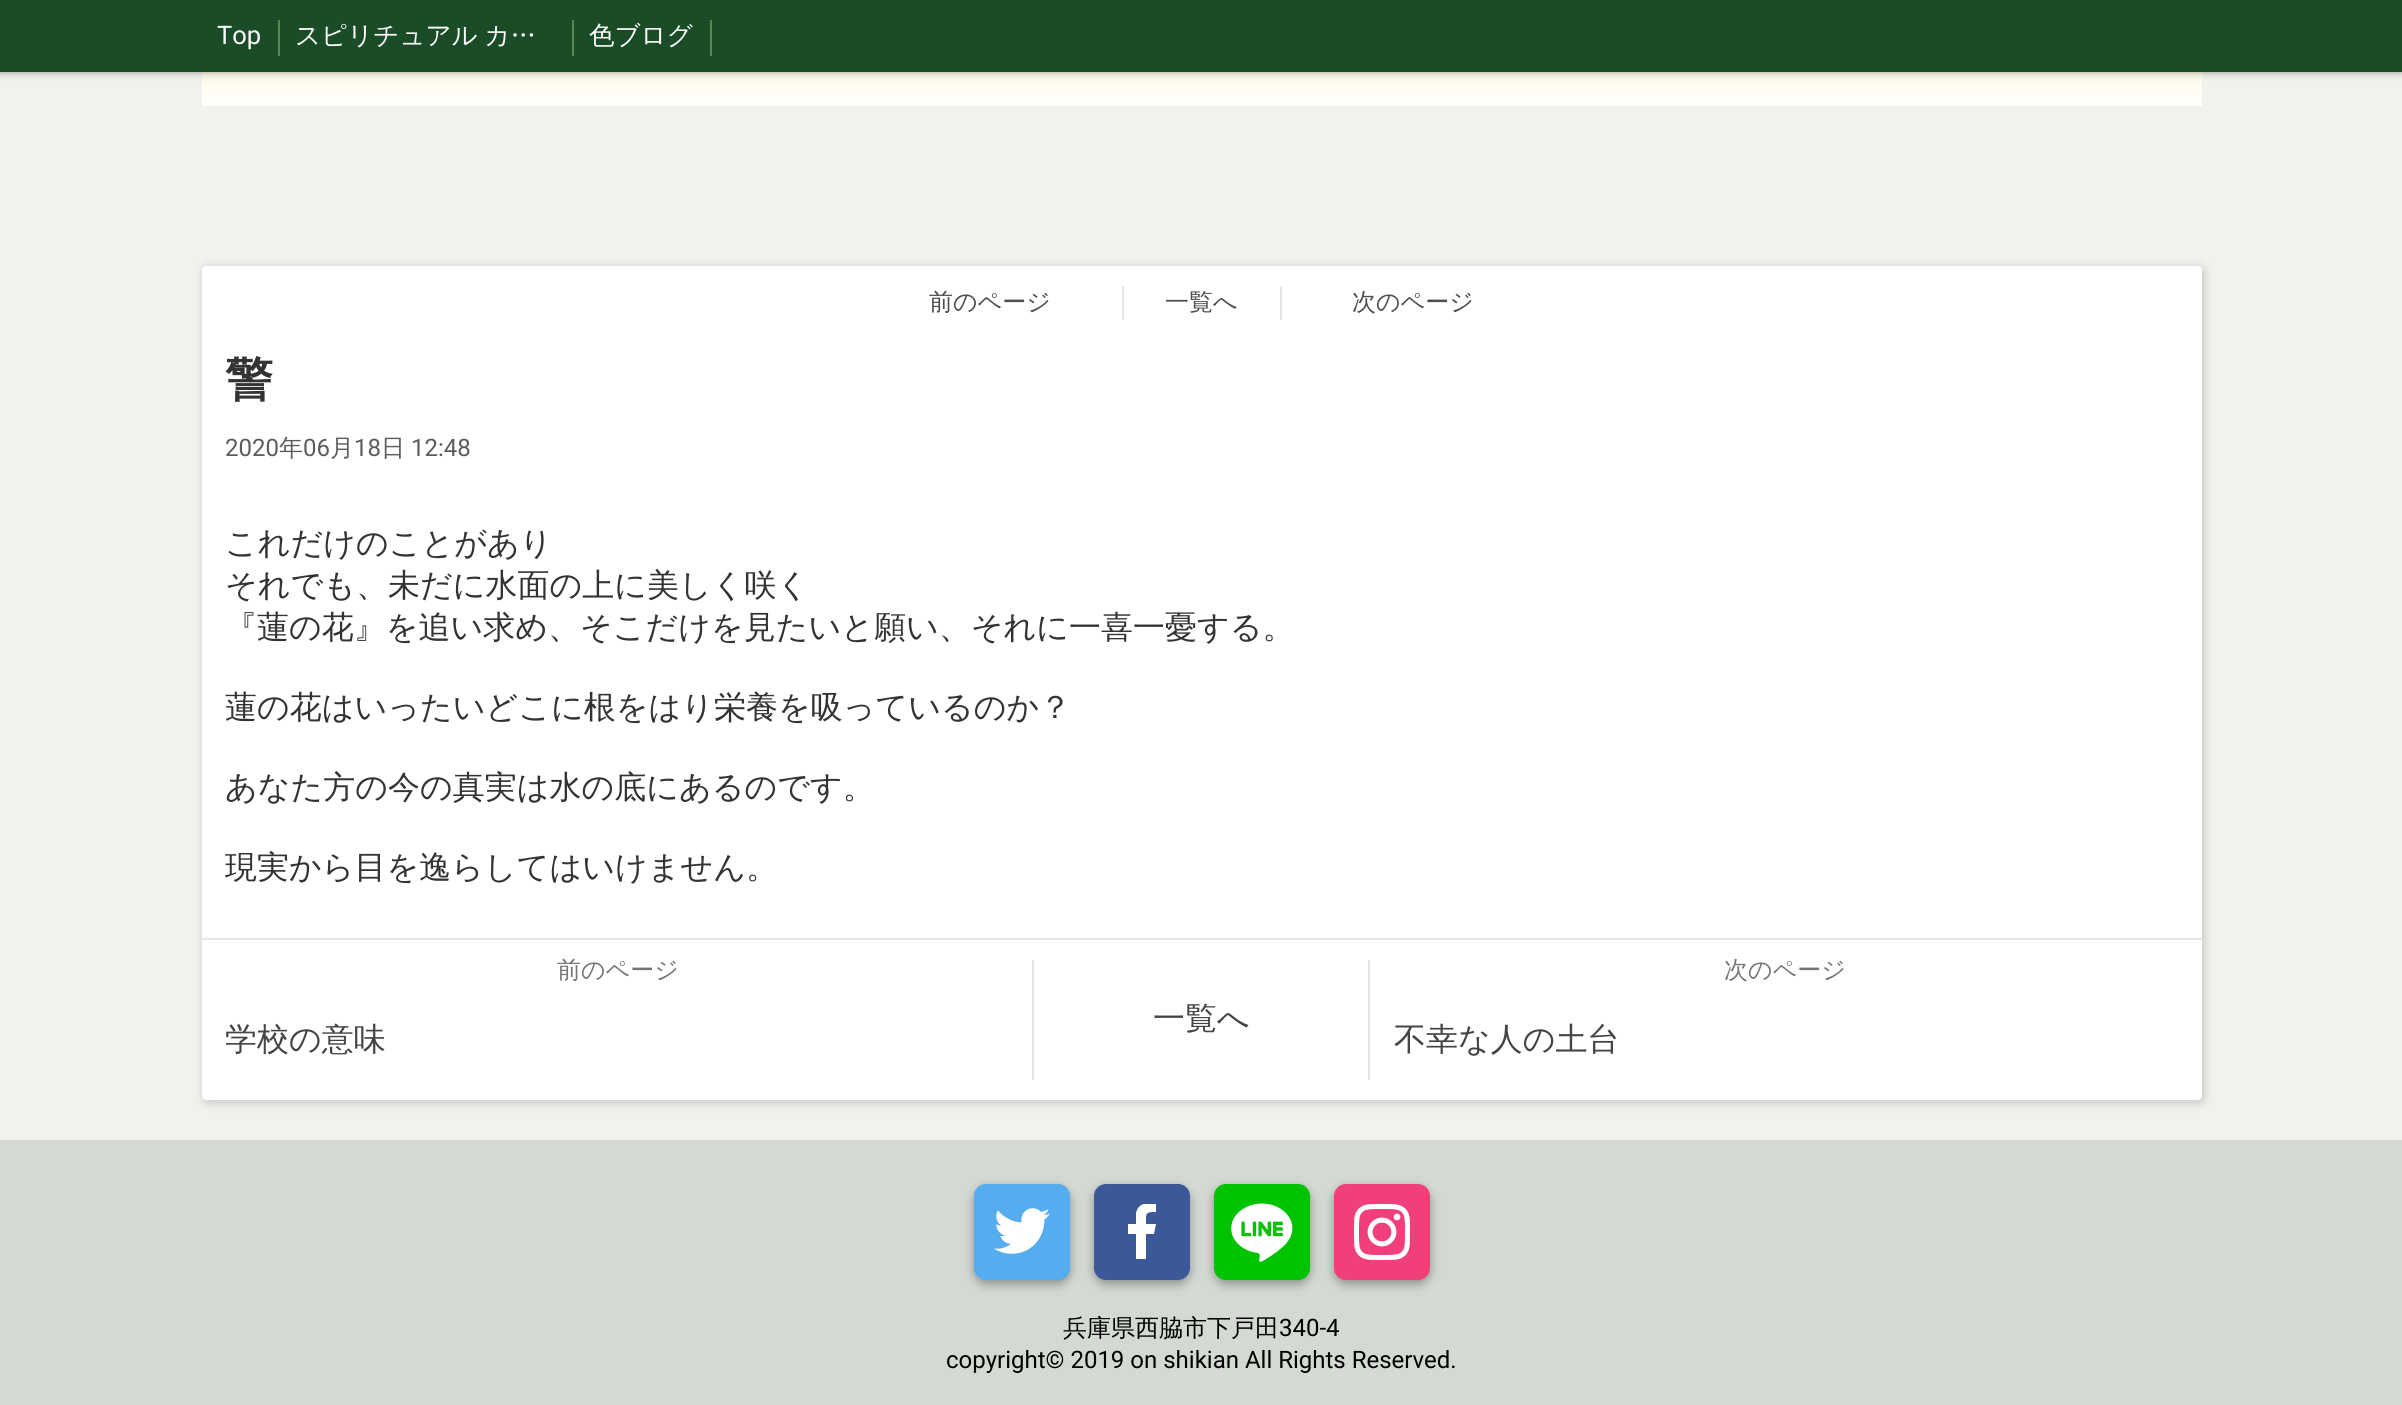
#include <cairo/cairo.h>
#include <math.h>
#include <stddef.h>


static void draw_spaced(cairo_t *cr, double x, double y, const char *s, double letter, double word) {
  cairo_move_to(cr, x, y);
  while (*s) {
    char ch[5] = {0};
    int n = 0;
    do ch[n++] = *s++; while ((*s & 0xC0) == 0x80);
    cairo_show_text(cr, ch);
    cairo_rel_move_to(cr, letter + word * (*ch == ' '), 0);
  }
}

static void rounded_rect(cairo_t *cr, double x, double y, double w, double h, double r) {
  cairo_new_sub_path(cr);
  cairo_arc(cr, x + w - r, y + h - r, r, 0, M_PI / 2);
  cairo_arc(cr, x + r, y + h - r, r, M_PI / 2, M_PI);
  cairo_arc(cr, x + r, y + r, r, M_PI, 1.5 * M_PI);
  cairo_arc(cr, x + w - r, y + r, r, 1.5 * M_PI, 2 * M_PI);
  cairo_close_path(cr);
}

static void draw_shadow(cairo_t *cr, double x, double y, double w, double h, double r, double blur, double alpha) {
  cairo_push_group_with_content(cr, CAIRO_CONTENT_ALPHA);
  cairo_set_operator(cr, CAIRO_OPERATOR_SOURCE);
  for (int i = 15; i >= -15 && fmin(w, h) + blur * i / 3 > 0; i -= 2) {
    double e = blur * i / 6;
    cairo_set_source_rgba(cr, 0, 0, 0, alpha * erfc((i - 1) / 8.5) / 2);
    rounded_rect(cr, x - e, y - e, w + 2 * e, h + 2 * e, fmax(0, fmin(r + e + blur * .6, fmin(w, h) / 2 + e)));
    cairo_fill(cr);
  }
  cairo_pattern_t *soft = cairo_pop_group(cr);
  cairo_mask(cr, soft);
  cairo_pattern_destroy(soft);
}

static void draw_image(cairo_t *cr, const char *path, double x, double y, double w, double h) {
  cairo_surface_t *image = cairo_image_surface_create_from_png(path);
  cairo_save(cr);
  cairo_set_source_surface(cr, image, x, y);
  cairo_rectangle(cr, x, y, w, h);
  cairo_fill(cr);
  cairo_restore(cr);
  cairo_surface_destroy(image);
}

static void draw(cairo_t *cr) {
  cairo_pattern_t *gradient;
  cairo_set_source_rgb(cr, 241 / 255.0, 242 / 255.0, 237 / 255.0);
  cairo_paint(cr);
  gradient = cairo_pattern_create_linear(1202, 42, 1202, 106);
  cairo_pattern_add_color_stop_rgba(gradient, 0, 251 / 255.0, 242 / 255.0, 207 / 255.0, 1);
  cairo_pattern_add_color_stop_rgba(gradient, 1, 1, 1, 1, 1);
  cairo_set_source(cr, gradient);
  cairo_pattern_destroy(gradient);
  cairo_rectangle(cr, 202, 72, 2000, 34);
  cairo_fill(cr);
  cairo_set_source_rgb(cr, 1 / 255.0, 1 / 255.0, 1 / 255.0);
  draw_shadow(cr, 0, 0, 2402, 72, 0, 4, 0.4);
  cairo_set_source_rgb(cr, 26 / 255.0, 77 / 255.0, 39 / 255.0);
  cairo_rectangle(cr, 0, 0, 2402, 72);
  cairo_fill(cr);
  cairo_set_source_rgb(cr, 85 / 255.0, 136 / 255.0, 85 / 255.0);
  cairo_rectangle(cr, 278, 20, 2, 36);
  cairo_fill(cr);
  cairo_rectangle(cr, 572, 20, 2, 36);
  cairo_fill(cr);
  cairo_rectangle(cr, 710, 20, 2, 36);
  cairo_fill(cr);
  cairo_set_source_rgb(cr, 0, 0, 0);
  draw_shadow(cr, 204, 268, 2000, 834, 4, 5, 0.2);
  cairo_set_source_rgb(cr, 1, 1, 1);
  rounded_rect(cr, 202, 266, 2000, 834, 4);
  cairo_fill(cr);
  cairo_set_source_rgb(cr, 230 / 255.0, 230 / 255.0, 230 / 255.0);
  cairo_rectangle(cr, 1280, 286, 2, 34);
  cairo_fill(cr);
  cairo_rectangle(cr, 1122, 286, 2, 34);
  cairo_fill(cr);
  cairo_rectangle(cr, 202, 938, 2000, 2);
  cairo_fill(cr);
  cairo_rectangle(cr, 1032, 960, 2, 120);
  cairo_fill(cr);
  cairo_rectangle(cr, 1368, 960, 2, 120);
  cairo_fill(cr);
  cairo_set_source_rgb(cr, 212 / 255.0, 218 / 255.0, 211 / 255.0);
  cairo_rectangle(cr, 0, 1140, 2402, 265);
  cairo_fill(cr);
  cairo_set_source_rgb(cr, 0, 0, 0);
  draw_shadow(cr, 974, 1188, 96, 96, 12, 5, 0.35);
  cairo_set_source_rgb(cr, 85 / 255.0, 172 / 255.0, 238 / 255.0);
  rounded_rect(cr, 974, 1184, 96, 96, 12);
  cairo_fill(cr);
  draw_image(cr, "images/1.png", 994, 1208, 56, 46);
  cairo_set_source_rgb(cr, 0, 0, 0);
  draw_shadow(cr, 1094, 1188, 96, 96, 12, 5, 0.35);
  cairo_set_source_rgb(cr, 59 / 255.0, 89 / 255.0, 152 / 255.0);
  rounded_rect(cr, 1094, 1184, 96, 96, 12);
  cairo_fill(cr);
  cairo_save(cr);
  cairo_rectangle(cr, 1128, 1204, 28, 56);
  cairo_clip(cr);
  cairo_set_source_rgb(cr, 1, 1, 1);
  cairo_new_path(cr);
  cairo_move_to(cr, 1136, 1259);
  cairo_line_to(cr, 1136, 1234);
  cairo_line_to(cr, 1128, 1234);
  cairo_line_to(cr, 1128, 1224);
  cairo_line_to(cr, 1136, 1224);
  cairo_line_to(cr, 1136, 1213);
  cairo_curve_to(cr, 1138, 1203, 1148, 1202, 1156, 1203);
  cairo_line_to(cr, 1156, 1212);
  cairo_curve_to(cr, 1145, 1212, 1146, 1213, 1146, 1224);
  cairo_line_to(cr, 1156, 1224);
  cairo_line_to(cr, 1154, 1234);
  cairo_line_to(cr, 1146, 1234);
  cairo_line_to(cr, 1146, 1259);
  cairo_close_path(cr);
  cairo_fill(cr);
  cairo_restore(cr);
  cairo_set_source_rgb(cr, 0, 0, 0);
  draw_shadow(cr, 1214, 1188, 96, 96, 12, 5, 0.35);
  cairo_set_source_rgb(cr, 0, 195 / 255.0, 0);
  rounded_rect(cr, 1214, 1184, 96, 96, 12);
  cairo_fill(cr);
  cairo_set_source_rgb(cr, 1, 1, 1);
  rounded_rect(cr, 1224, 1194, 76, 76, 20);
  cairo_fill(cr);
  draw_image(cr, "images/2.png", 1224, 1194, 76, 76);
  cairo_set_source_rgb(cr, 0, 0, 0);
  draw_shadow(cr, 1334, 1188, 96, 96, 12, 5, 0.35);
  cairo_set_source_rgb(cr, 241 / 255.0, 63 / 255.0, 121 / 255.0);
  rounded_rect(cr, 1334, 1184, 96, 96, 12);
  cairo_fill(cr);
  draw_image(cr, "images/3.png", 1354, 1204, 56, 56);
  cairo_select_font_face(cr, "Roboto", CAIRO_FONT_SLANT_NORMAL, CAIRO_FONT_WEIGHT_NORMAL);
  cairo_set_font_size(cr, 25.5);
  cairo_set_source_rgb(cr, 1, 1, 1);
  cairo_move_to(cr, 217, 44);
  cairo_show_text(cr, "Top");
  cairo_select_font_face(cr, "WenQuanYi Zen Hei Medium", CAIRO_FONT_SLANT_NORMAL, CAIRO_FONT_WEIGHT_NORMAL);
  draw_spaced(cr, 295, 44, "スピリチュアル カ…", 0, -1);
  cairo_move_to(cr, 589, 44);
  cairo_show_text(cr, "色ブログ");
  cairo_set_font_size(cr, 24);
  cairo_set_source_rgb(cr, 77 / 255.0, 77 / 255.0, 77 / 255.0);
  cairo_move_to(cr, 929, 310);
  cairo_show_text(cr, "前のページ");
  cairo_move_to(cr, 1165, 310);
  cairo_show_text(cr, "一覧へ");
  cairo_move_to(cr, 1352, 310);
  cairo_show_text(cr, "次のページ");
  cairo_select_font_face(cr, "WenQuanYi Zen Hei", CAIRO_FONT_SLANT_NORMAL, CAIRO_FONT_WEIGHT_BOLD);
  cairo_set_font_size(cr, 48);
  cairo_set_source_rgb(cr, 51 / 255.0, 51 / 255.0, 51 / 255.0);
  cairo_move_to(cr, 225, 396);
  cairo_show_text(cr, "警");
  cairo_select_font_face(cr, "Roboto", CAIRO_FONT_SLANT_NORMAL, CAIRO_FONT_WEIGHT_NORMAL);
  cairo_set_font_size(cr, 24);
  cairo_set_source_rgb(cr, 92 / 255.0, 92 / 255.0, 92 / 255.0);
  cairo_move_to(cr, 225, 456);
  cairo_show_text(cr, "2020");
  cairo_select_font_face(cr, "WenQuanYi Zen Hei Medium", CAIRO_FONT_SLANT_NORMAL, CAIRO_FONT_WEIGHT_NORMAL);
  cairo_move_to(cr, 279, 456);
  cairo_show_text(cr, "年");
  cairo_select_font_face(cr, "Roboto", CAIRO_FONT_SLANT_NORMAL, CAIRO_FONT_WEIGHT_NORMAL);
  cairo_move_to(cr, 303, 456);
  cairo_show_text(cr, "06");
  cairo_select_font_face(cr, "WenQuanYi Zen Hei Medium", CAIRO_FONT_SLANT_NORMAL, CAIRO_FONT_WEIGHT_NORMAL);
  cairo_move_to(cr, 330, 456);
  cairo_show_text(cr, "月");
  cairo_select_font_face(cr, "Roboto", CAIRO_FONT_SLANT_NORMAL, CAIRO_FONT_WEIGHT_NORMAL);
  cairo_move_to(cr, 354, 456);
  cairo_show_text(cr, "18");
  cairo_select_font_face(cr, "WenQuanYi Zen Hei Medium", CAIRO_FONT_SLANT_NORMAL, CAIRO_FONT_WEIGHT_NORMAL);
  cairo_move_to(cr, 381, 456);
  cairo_show_text(cr, "日");
  cairo_select_font_face(cr, "Roboto", CAIRO_FONT_SLANT_NORMAL, CAIRO_FONT_WEIGHT_NORMAL);
  cairo_move_to(cr, 411, 456);
  cairo_show_text(cr, "12:48");
  cairo_select_font_face(cr, "WenQuanYi Zen Hei Medium", CAIRO_FONT_SLANT_NORMAL, CAIRO_FONT_WEIGHT_NORMAL);
  cairo_set_font_size(cr, 32);
  cairo_set_source_rgb(cr, 51 / 255.0, 51 / 255.0, 51 / 255.0);
  cairo_move_to(cr, 225, 554);
  cairo_show_text(cr, "これだけのことがあり");
  cairo_move_to(cr, 225, 596);
  cairo_show_text(cr, "それでも、未だに水面の上に美しく咲く");
  cairo_move_to(cr, 225, 638);
  cairo_show_text(cr, "『蓮の花』を追い求め、そこだけを見たいと願い、それに一喜一憂する。");
  cairo_move_to(cr, 225, 718);
  cairo_show_text(cr, "蓮の花はいったいどこに根をはり栄養を吸っているのか？");
  cairo_move_to(cr, 225, 798);
  cairo_show_text(cr, "あなた方の今の真実は水の底にあるのです。");
  cairo_move_to(cr, 225, 878);
  cairo_show_text(cr, "現実から目を逸らしてはいけません。");
  cairo_set_font_size(cr, 24);
  cairo_set_source_rgb(cr, 117 / 255.0, 117 / 255.0, 117 / 255.0);
  cairo_move_to(cr, 557, 978);
  cairo_show_text(cr, "前のページ");
  cairo_set_font_size(cr, 32);
  cairo_set_source_rgb(cr, 68 / 255.0, 68 / 255.0, 68 / 255.0);
  cairo_move_to(cr, 225, 1050);
  cairo_show_text(cr, "学校の意味");
  cairo_move_to(cr, 1153, 1029);
  cairo_show_text(cr, "一覧へ");
  cairo_set_font_size(cr, 24);
  cairo_set_source_rgb(cr, 117 / 255.0, 117 / 255.0, 117 / 255.0);
  cairo_move_to(cr, 1724, 978);
  cairo_show_text(cr, "次のページ");
  cairo_set_font_size(cr, 32);
  cairo_set_source_rgb(cr, 68 / 255.0, 68 / 255.0, 68 / 255.0);
  cairo_move_to(cr, 1394, 1050);
  cairo_show_text(cr, "不幸な人の土台");
  cairo_set_font_size(cr, 24);
  cairo_set_source_rgb(cr, 0, 0, 0);
  cairo_move_to(cr, 1063, 1336);
  cairo_show_text(cr, "兵庫県西脇市下戸田");
  cairo_select_font_face(cr, "Roboto", CAIRO_FONT_SLANT_NORMAL, CAIRO_FONT_WEIGHT_NORMAL);
  cairo_move_to(cr, 1279, 1336);
  cairo_show_text(cr, "340-4");
  cairo_move_to(cr, 946, 1368);
  cairo_show_text(cr, "copyright© 2019 on shikian All Rights Reserved.");
}

int main(void) {
  cairo_surface_t *surface = cairo_image_surface_create(CAIRO_FORMAT_RGB24, 2402, 1405);
  cairo_t *cr = cairo_create(surface);
  cairo_font_options_t *options = cairo_font_options_create();
  cairo_font_options_set_hint_metrics(options, CAIRO_HINT_METRICS_OFF);
  cairo_font_options_set_hint_style(options, CAIRO_HINT_STYLE_NONE);
  cairo_set_font_options(cr, options);
  cairo_set_miter_limit(cr, 4);
  draw(cr);
  cairo_surface_write_to_png(surface, "out.png");
  cairo_font_options_destroy(options);
  cairo_destroy(cr);
  cairo_surface_destroy(surface);
  return 0;
}
